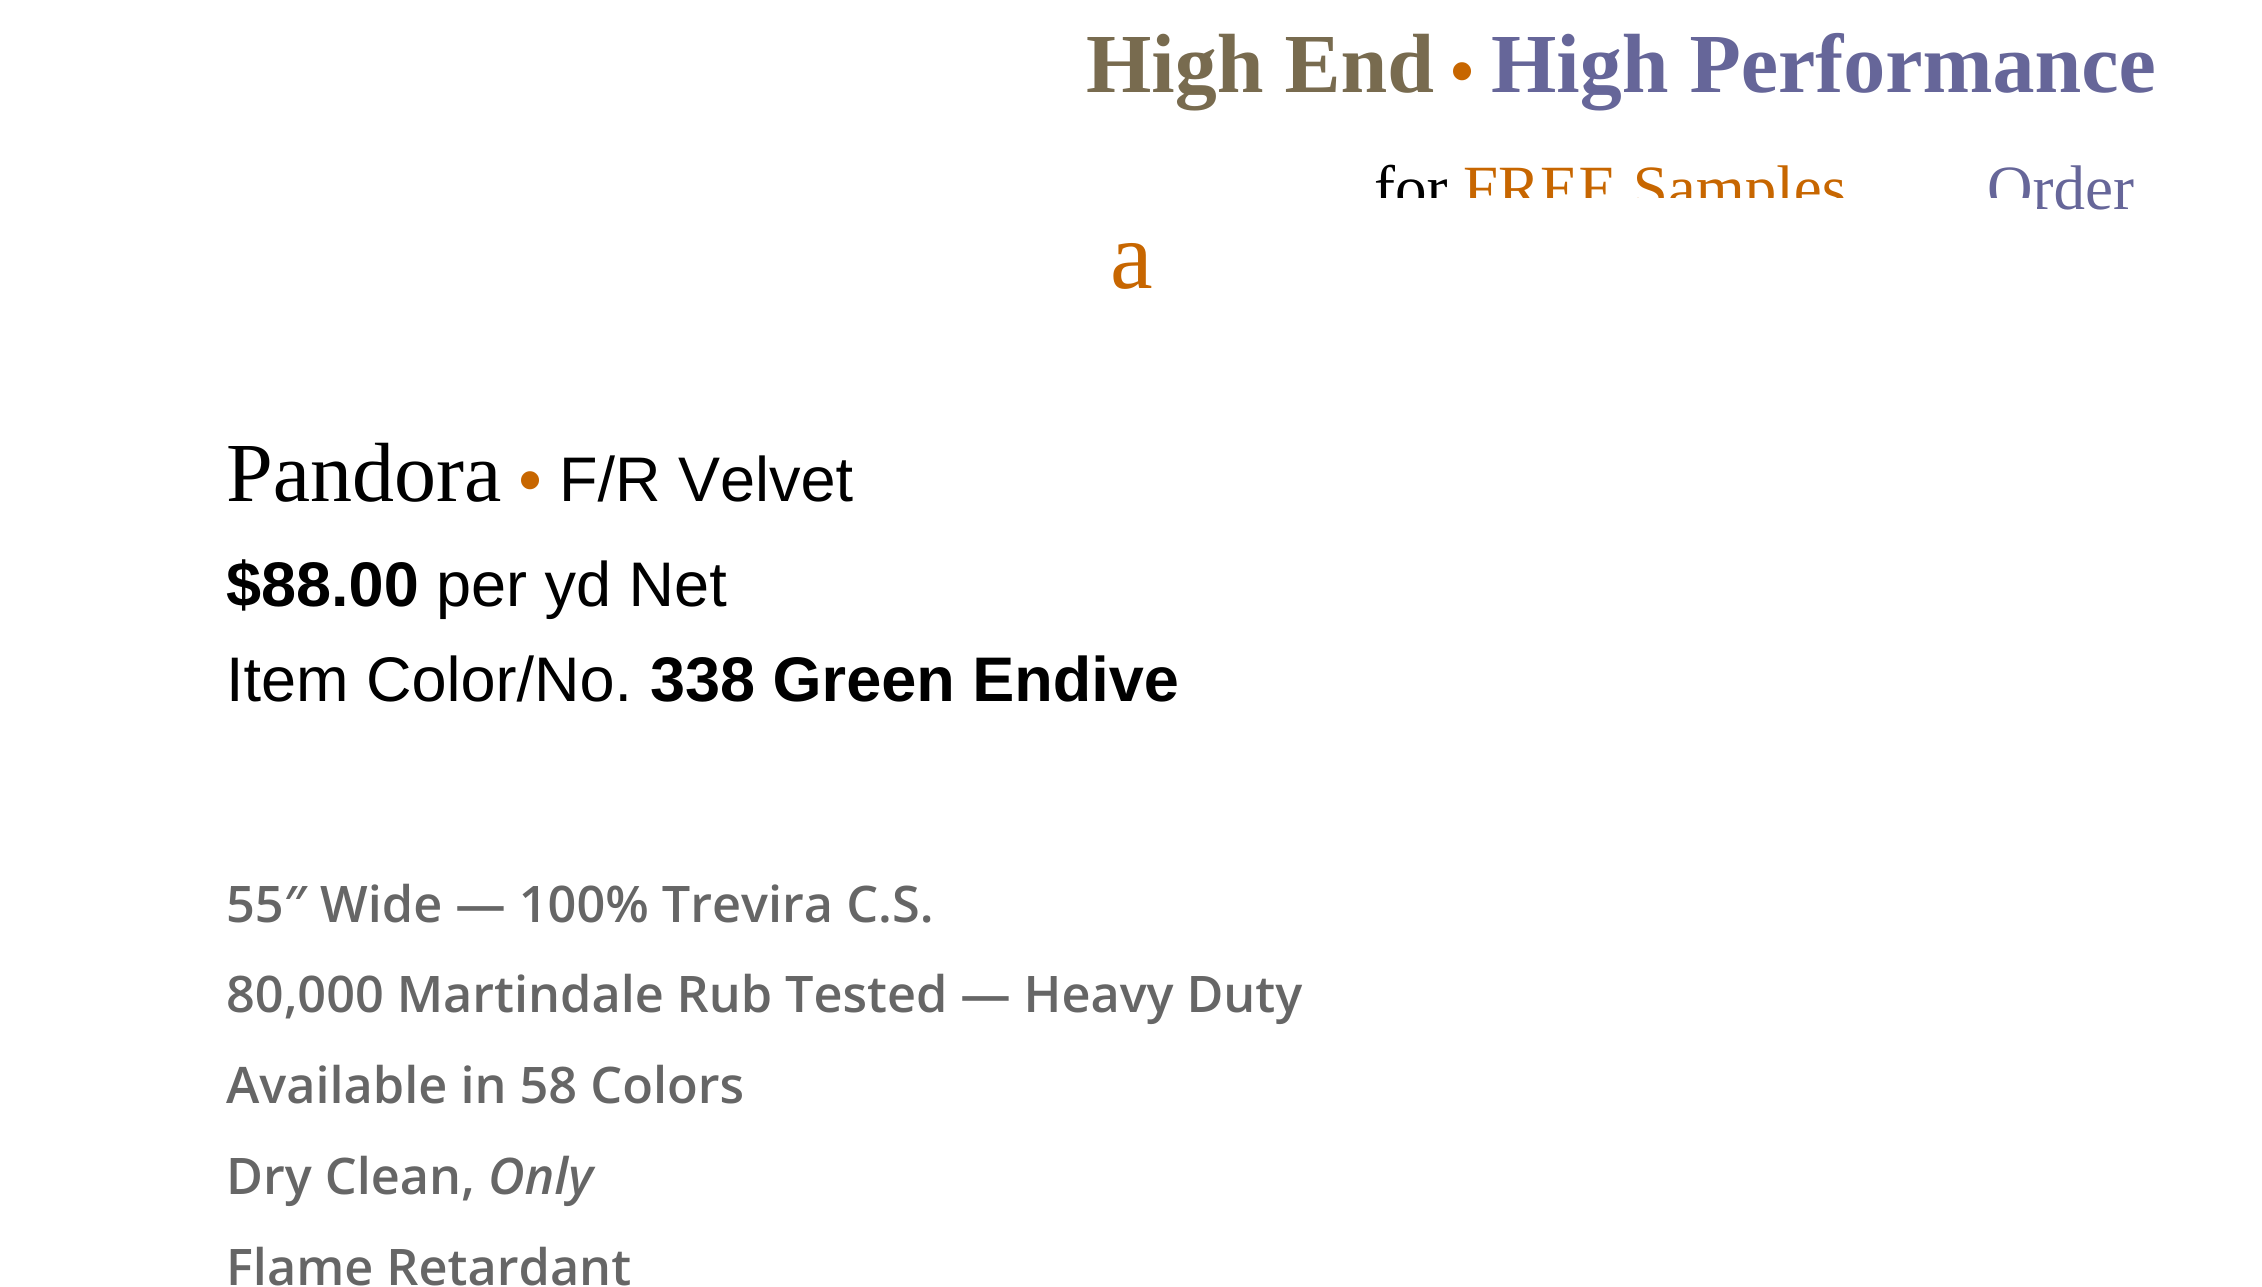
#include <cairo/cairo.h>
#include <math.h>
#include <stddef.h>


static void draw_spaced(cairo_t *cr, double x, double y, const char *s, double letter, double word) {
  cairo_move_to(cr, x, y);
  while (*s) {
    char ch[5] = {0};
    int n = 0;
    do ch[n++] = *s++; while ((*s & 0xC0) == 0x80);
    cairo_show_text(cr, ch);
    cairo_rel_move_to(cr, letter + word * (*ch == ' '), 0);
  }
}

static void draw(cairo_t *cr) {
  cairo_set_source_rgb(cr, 1, 1, 1);
  cairo_paint(cr);
  cairo_select_font_face(cr, "Liberation Serif", CAIRO_FONT_SLANT_NORMAL, CAIRO_FONT_WEIGHT_BOLD);
  cairo_set_font_size(cr, 84);
  cairo_set_source_rgb(cr, 120 / 255.0, 107 / 255.0, 79 / 255.0);
  cairo_move_to(cr, 1086, 92);
  cairo_show_text(cr, "High End");
  cairo_select_font_face(cr, "Liberation Sans", CAIRO_FONT_SLANT_NORMAL, CAIRO_FONT_WEIGHT_BOLD);
  cairo_set_font_size(cr, 63);
  cairo_set_source_rgb(cr, 199 / 255.0, 102 / 255.0, 0);
  cairo_move_to(cr, 1451, 92);
  cairo_show_text(cr, "•");
  cairo_select_font_face(cr, "Liberation Serif", CAIRO_FONT_SLANT_NORMAL, CAIRO_FONT_WEIGHT_BOLD);
  cairo_set_font_size(cr, 84);
  cairo_set_source_rgb(cr, 102 / 255.0, 102 / 255.0, 153 / 255.0);
  cairo_move_to(cr, 1491, 92);
  cairo_show_text(cr, "High Performance");
  cairo_select_font_face(cr, "Liberation Serif", CAIRO_FONT_SLANT_NORMAL, CAIRO_FONT_WEIGHT_NORMAL);
  cairo_set_font_size(cr, 63);
  cairo_set_source_rgb(cr, 0, 0, 0);
  cairo_move_to(cr, 1374, 209);
  cairo_show_text(cr, "for");
  cairo_set_source_rgb(cr, 199 / 255.0, 102 / 255.0, 0);
  cairo_move_to(cr, 1463, 209);
  cairo_show_text(cr, "FREE Samples");
  cairo_set_source_rgb(cr, 102 / 255.0, 102 / 255.0, 153 / 255.0);
  cairo_move_to(cr, 1987, 209);
  cairo_show_text(cr, "Order");
  cairo_set_source_rgb(cr, 1, 1, 1);
  cairo_rectangle(cr, 1376, 198, 661, 25);
  cairo_fill(cr);
  cairo_set_font_size(cr, 96);
  cairo_set_source_rgb(cr, 199 / 255.0, 102 / 255.0, 0);
  cairo_move_to(cr, 1110, 288);
  cairo_show_text(cr, "a");
  cairo_set_font_size(cr, 84);
  cairo_set_source_rgb(cr, 0, 0, 0);
  cairo_move_to(cr, 226, 501);
  cairo_show_text(cr, "Pandora");
  cairo_select_font_face(cr, "Liberation Sans", CAIRO_FONT_SLANT_NORMAL, CAIRO_FONT_WEIGHT_BOLD);
  cairo_set_font_size(cr, 63);
  cairo_set_source_rgb(cr, 199 / 255.0, 102 / 255.0, 0);
  cairo_move_to(cr, 519, 501);
  cairo_show_text(cr, "•");
  cairo_select_font_face(cr, "Liberation Sans", CAIRO_FONT_SLANT_NORMAL, CAIRO_FONT_WEIGHT_NORMAL);
  cairo_set_source_rgb(cr, 0, 0, 0);
  cairo_move_to(cr, 559, 501);
  cairo_show_text(cr, "F/R Velvet");
  cairo_select_font_face(cr, "Liberation Sans", CAIRO_FONT_SLANT_NORMAL, CAIRO_FONT_WEIGHT_BOLD);
  cairo_move_to(cr, 226, 606);
  cairo_show_text(cr, "$88.00");
  cairo_select_font_face(cr, "Liberation Sans", CAIRO_FONT_SLANT_NORMAL, CAIRO_FONT_WEIGHT_NORMAL);
  cairo_move_to(cr, 436, 606);
  cairo_show_text(cr, "per yd Net");
  cairo_move_to(cr, 226, 701);
  cairo_show_text(cr, "Item Color/No.");
  cairo_select_font_face(cr, "Liberation Sans", CAIRO_FONT_SLANT_NORMAL, CAIRO_FONT_WEIGHT_BOLD);
  cairo_move_to(cr, 650, 701);
  cairo_show_text(cr, "338 Green Endive");
  cairo_select_font_face(cr, "Open Sans SemiBold", CAIRO_FONT_SLANT_NORMAL, CAIRO_FONT_WEIGHT_NORMAL);
  cairo_set_font_size(cr, 50.4);
  cairo_set_source_rgb(cr, 102 / 255.0, 102 / 255.0, 102 / 255.0);
  cairo_move_to(cr, 226, 922);
  cairo_show_text(cr, "55″ Wide — 100% Trevira C.S.");
  draw_spaced(cr, 226, 1012, "80,000 Martindale Rub Tested — Heavy Duty", 0, -0.25);
  cairo_move_to(cr, 226, 1103);
  cairo_show_text(cr, "Available in 58 Colors");
  cairo_move_to(cr, 226, 1194);
  cairo_show_text(cr, "Dry Clean,");
  cairo_select_font_face(cr, "Open Sans SemiBold", CAIRO_FONT_SLANT_ITALIC, CAIRO_FONT_WEIGHT_NORMAL);
  cairo_move_to(cr, 488, 1194);
  cairo_show_text(cr, "Only");
  cairo_select_font_face(cr, "Open Sans SemiBold", CAIRO_FONT_SLANT_NORMAL, CAIRO_FONT_WEIGHT_NORMAL);
  cairo_move_to(cr, 226, 1285);
  cairo_show_text(cr, "Flame Retardant");
}

int main(void) {
  cairo_surface_t *surface = cairo_image_surface_create(CAIRO_FORMAT_RGB24, 2262, 1287);
  cairo_t *cr = cairo_create(surface);
  cairo_font_options_t *options = cairo_font_options_create();
  cairo_font_options_set_hint_metrics(options, CAIRO_HINT_METRICS_OFF);
  cairo_font_options_set_hint_style(options, CAIRO_HINT_STYLE_NONE);
  cairo_set_font_options(cr, options);
  cairo_set_miter_limit(cr, 4);
  draw(cr);
  cairo_surface_write_to_png(surface, "out.png");
  cairo_font_options_destroy(options);
  cairo_destroy(cr);
  cairo_surface_destroy(surface);
  return 0;
}
